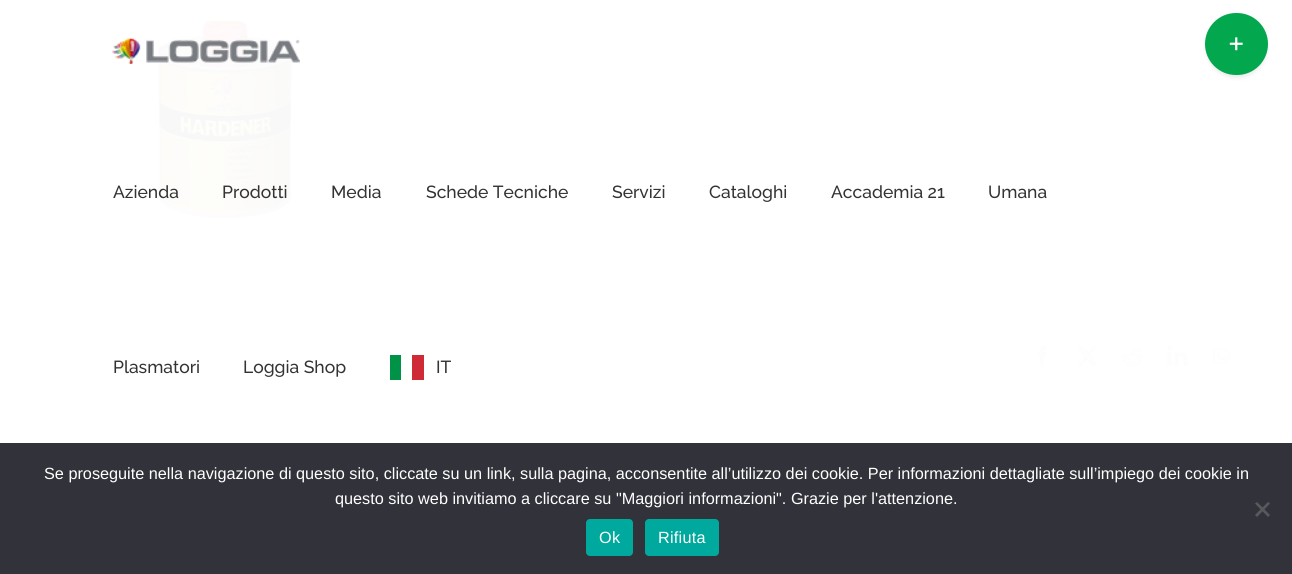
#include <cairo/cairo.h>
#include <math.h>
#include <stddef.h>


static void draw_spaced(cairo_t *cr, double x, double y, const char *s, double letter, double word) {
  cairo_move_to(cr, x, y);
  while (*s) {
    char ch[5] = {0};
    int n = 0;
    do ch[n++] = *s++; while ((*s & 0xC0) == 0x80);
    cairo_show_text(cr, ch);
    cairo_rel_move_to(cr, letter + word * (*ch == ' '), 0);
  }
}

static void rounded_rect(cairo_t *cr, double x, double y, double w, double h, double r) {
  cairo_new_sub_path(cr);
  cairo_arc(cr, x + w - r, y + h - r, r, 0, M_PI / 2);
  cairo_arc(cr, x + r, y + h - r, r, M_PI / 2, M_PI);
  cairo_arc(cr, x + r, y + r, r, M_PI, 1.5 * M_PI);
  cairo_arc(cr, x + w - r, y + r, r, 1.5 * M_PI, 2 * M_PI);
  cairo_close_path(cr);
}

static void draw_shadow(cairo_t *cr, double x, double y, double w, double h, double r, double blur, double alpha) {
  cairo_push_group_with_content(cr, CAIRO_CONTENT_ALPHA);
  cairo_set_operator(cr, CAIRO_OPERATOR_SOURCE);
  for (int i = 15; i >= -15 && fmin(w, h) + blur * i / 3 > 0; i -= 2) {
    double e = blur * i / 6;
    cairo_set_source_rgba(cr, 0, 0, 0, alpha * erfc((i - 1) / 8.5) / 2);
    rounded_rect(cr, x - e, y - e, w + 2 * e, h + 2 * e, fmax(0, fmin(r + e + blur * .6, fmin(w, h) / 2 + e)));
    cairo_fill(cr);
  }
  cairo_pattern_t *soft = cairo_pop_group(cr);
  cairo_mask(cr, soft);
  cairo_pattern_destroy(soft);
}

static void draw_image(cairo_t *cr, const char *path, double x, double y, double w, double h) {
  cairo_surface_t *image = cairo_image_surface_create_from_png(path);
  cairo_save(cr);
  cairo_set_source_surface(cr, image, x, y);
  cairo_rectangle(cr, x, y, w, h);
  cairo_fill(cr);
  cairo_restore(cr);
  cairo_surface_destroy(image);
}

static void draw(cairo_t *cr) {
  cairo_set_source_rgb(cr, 1, 1, 1);
  cairo_paint(cr);
  draw_image(cr, "images/2.png", 156, 18, 138, 201);
  cairo_set_source_rgb(cr, 246 / 255.0, 246 / 255.0, 246 / 255.0);
  cairo_rectangle(cr, 38, 313, 1217, 87);
  cairo_fill(cr);
  draw_image(cr, "images/3.png", 1037, 346, 10, 21);
  draw_image(cr, "images/4.png", 1077, 347, 21, 19);
  draw_image(cr, "images/5.png", 1122, 348, 21, 19);
  draw_image(cr, "images/6.png", 1167, 346, 21, 21);
  draw_image(cr, "images/7.png", 1212, 347, 18, 18);
  cairo_set_source_rgba(cr, 1, 1, 1, 0.97);
  cairo_rectangle(cr, 38, 18, 1217, 382);
  cairo_fill(cr);
  cairo_set_source_rgb(cr, 0, 0, 0);
  draw_shadow(cr, 1208, 19, 57, 57, 28.5, 3, 0.14);
  cairo_set_source_rgb(cr, 3 / 255.0, 168 / 255.0, 78 / 255.0);
  rounded_rect(cr, 1205, 13, 63, 62, 31);
  cairo_fill(cr);
  draw_image(cr, "images/1.png", 1229, 37, 14, 14);
  draw_image(cr, "images/8.png", 112, 38, 188, 26);
  cairo_set_source_rgb(cr, 0, 146 / 255.0, 70 / 255.0);
  cairo_rectangle(cr, 390, 355, 11, 25);
  cairo_fill(cr);
  cairo_set_source_rgb(cr, 206 / 255.0, 43 / 255.0, 55 / 255.0);
  cairo_rectangle(cr, 412, 355, 12, 25);
  cairo_fill(cr);
  cairo_set_source_rgb(cr, 50 / 255.0, 50 / 255.0, 58 / 255.0);
  cairo_rectangle(cr, 0, 443, 1292, 131);
  cairo_fill(cr);
  cairo_set_source_rgb(cr, 89 / 255.0, 89 / 255.0, 93 / 255.0);
  cairo_new_path(cr);
  cairo_move_to(cr, 1268, 502);
  cairo_line_to(cr, 1270, 503.5);
  cairo_line_to(cr, 1257, 517);
  cairo_line_to(cr, 1255, 515);
  cairo_close_path(cr);
  cairo_fill(cr);
  cairo_new_path(cr);
  cairo_move_to(cr, 1255, 503.5);
  cairo_line_to(cr, 1257, 502);
  cairo_line_to(cr, 1270, 515);
  cairo_line_to(cr, 1268, 517);
  cairo_close_path(cr);
  cairo_fill(cr);
  cairo_set_source_rgb(cr, 0, 169 / 255.0, 157 / 255.0);
  rounded_rect(cr, 586, 519, 47, 37, 4);
  cairo_fill(cr);
  rounded_rect(cr, 645, 519, 74, 37, 4);
  cairo_fill(cr);
  cairo_select_font_face(cr, "Raleway Medium", CAIRO_FONT_SLANT_NORMAL, CAIRO_FONT_WEIGHT_NORMAL);
  cairo_set_font_size(cr, 17.5);
  cairo_set_source_rgb(cr, 51 / 255.0, 51 / 255.0, 51 / 255.0);
  cairo_move_to(cr, 113, 198);
  cairo_show_text(cr, "Azienda");
  cairo_move_to(cr, 222, 198);
  cairo_show_text(cr, "Prodotti");
  cairo_move_to(cr, 331, 198);
  cairo_show_text(cr, "Media");
  cairo_move_to(cr, 426, 198);
  cairo_show_text(cr, "Schede Tecniche");
  cairo_move_to(cr, 612, 198);
  cairo_show_text(cr, "Servizi");
  cairo_move_to(cr, 709, 198);
  cairo_show_text(cr, "Cataloghi");
  cairo_move_to(cr, 831, 198);
  cairo_show_text(cr, "Accademia 21");
  cairo_move_to(cr, 988, 198);
  cairo_show_text(cr, "Umana");
  cairo_move_to(cr, 113, 373);
  cairo_show_text(cr, "Plasmatori");
  cairo_move_to(cr, 243, 373);
  cairo_show_text(cr, "Loggia Shop");
  cairo_move_to(cr, 436, 373);
  cairo_show_text(cr, "IT");
  cairo_select_font_face(cr, "Liberation Sans", CAIRO_FONT_SLANT_NORMAL, CAIRO_FONT_WEIGHT_NORMAL);
  cairo_set_font_size(cr, 16.25);
  cairo_set_source_rgb(cr, 1, 1, 1);
  cairo_move_to(cr, 44, 479);
  cairo_show_text(cr, "Se proseguite nella navigazione di questo sito, cliccate su un link, sulla pagina, acconsentite all’utilizzo dei cookie. Per informazioni dettagliate sull’impiego dei cookie in");
  cairo_move_to(cr, 335, 504);
  cairo_show_text(cr, "questo sito web invitiamo a cliccare su \"Maggiori informazioni\". Grazie per l'attenzione.");
  draw_spaced(cr, 599, 543, "Ok", 0.25, 0);
  draw_spaced(cr, 658, 543, "Rifiuta", 0.25, 0);
}

int main(void) {
  cairo_surface_t *surface = cairo_image_surface_create(CAIRO_FORMAT_RGB24, 1292, 574);
  cairo_t *cr = cairo_create(surface);
  cairo_font_options_t *options = cairo_font_options_create();
  cairo_font_options_set_hint_metrics(options, CAIRO_HINT_METRICS_OFF);
  cairo_font_options_set_hint_style(options, CAIRO_HINT_STYLE_NONE);
  cairo_set_font_options(cr, options);
  cairo_set_miter_limit(cr, 4);
  draw(cr);
  cairo_surface_write_to_png(surface, "out.png");
  cairo_font_options_destroy(options);
  cairo_destroy(cr);
  cairo_surface_destroy(surface);
  return 0;
}
